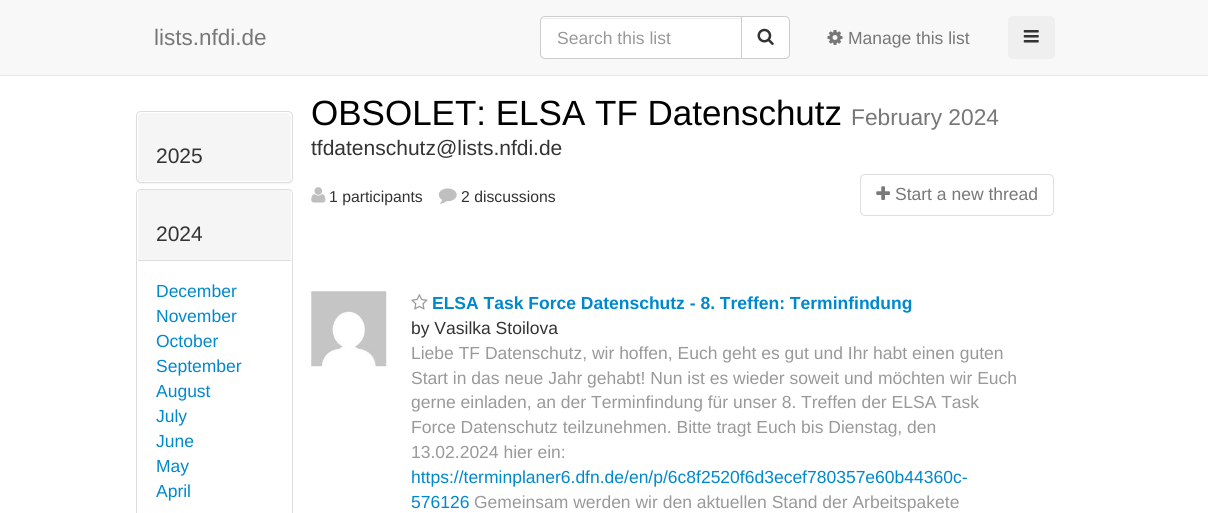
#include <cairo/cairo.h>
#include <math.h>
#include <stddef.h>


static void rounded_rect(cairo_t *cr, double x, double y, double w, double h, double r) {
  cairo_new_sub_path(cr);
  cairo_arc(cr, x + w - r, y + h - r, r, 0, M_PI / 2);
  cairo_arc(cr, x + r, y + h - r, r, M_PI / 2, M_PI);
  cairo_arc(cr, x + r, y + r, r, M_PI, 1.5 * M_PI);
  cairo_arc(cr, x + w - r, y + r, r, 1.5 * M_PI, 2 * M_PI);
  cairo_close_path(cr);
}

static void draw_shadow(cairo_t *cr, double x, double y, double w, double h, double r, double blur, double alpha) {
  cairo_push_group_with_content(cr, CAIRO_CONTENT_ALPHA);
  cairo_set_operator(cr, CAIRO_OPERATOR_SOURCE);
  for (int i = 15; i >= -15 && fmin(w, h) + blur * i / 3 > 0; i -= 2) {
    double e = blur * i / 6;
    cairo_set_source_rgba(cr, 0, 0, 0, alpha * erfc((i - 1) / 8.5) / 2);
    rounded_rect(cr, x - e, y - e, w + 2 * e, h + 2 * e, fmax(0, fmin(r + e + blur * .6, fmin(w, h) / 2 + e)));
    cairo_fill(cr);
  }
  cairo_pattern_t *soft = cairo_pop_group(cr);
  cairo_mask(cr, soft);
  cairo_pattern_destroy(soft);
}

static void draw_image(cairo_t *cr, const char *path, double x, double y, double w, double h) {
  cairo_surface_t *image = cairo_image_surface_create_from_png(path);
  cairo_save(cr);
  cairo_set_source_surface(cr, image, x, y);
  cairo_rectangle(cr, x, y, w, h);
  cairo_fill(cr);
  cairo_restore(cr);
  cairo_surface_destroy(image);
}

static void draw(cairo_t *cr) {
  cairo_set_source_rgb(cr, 1, 1, 1);
  cairo_paint(cr);
  cairo_set_source_rgb(cr, 248 / 255.0, 248 / 255.0, 248 / 255.0);
  cairo_rectangle(cr, 0, 0, 1208, 75);
  cairo_fill(cr);
  cairo_set_source_rgb(cr, 231 / 255.0, 231 / 255.0, 231 / 255.0);
  cairo_rectangle(cr, 0, 75, 1208, 1);
  cairo_fill(cr);
  cairo_set_source_rgb(cr, 1, 1, 1);
  cairo_new_path(cr);
  cairo_move_to(cr, 545, 16);
  cairo_line_to(cr, 743, 16);
  cairo_line_to(cr, 743, 59);
  cairo_line_to(cr, 545, 59);
  cairo_curve_to(cr, 542, 59, 540, 57, 540, 54);
  cairo_line_to(cr, 540, 21);
  cairo_curve_to(cr, 540, 18, 542, 16, 545, 16);
  cairo_close_path(cr);
  cairo_fill(cr);
  cairo_set_source_rgb(cr, 236 / 255.0, 236 / 255.0, 236 / 255.0);
  cairo_new_path(cr);
  cairo_move_to(cr, 545, 19);
  cairo_line_to(cr, 741, 19);
  cairo_line_to(cr, 741, 18);
  cairo_line_to(cr, 545, 18);
  cairo_curve_to(cr, 543, 18, 541, 20, 541, 22);
  cairo_curve_to(cr, 541, 20, 543, 19, 545, 19);
  cairo_close_path(cr);
  cairo_fill(cr);
  cairo_new_path(cr);
  cairo_move_to(cr, 545, 16.5);
  cairo_line_to(cr, 742.5, 16.5);
  cairo_line_to(cr, 742.5, 58.5);
  cairo_line_to(cr, 545, 58.5);
  cairo_curve_to(cr, 542.5, 58.5, 540.5, 56.5, 540.5, 54);
  cairo_line_to(cr, 540.5, 21);
  cairo_curve_to(cr, 540.5, 18.5, 542.5, 16.5, 545, 16.5);
  cairo_close_path(cr);
  cairo_set_source_rgb(cr, 204 / 255.0, 204 / 255.0, 204 / 255.0);
  cairo_set_line_width(cr, 1);
  cairo_stroke(cr);
  cairo_set_source_rgb(cr, 1, 1, 1);
  cairo_new_path(cr);
  cairo_move_to(cr, 741.5, 16.5);
  cairo_line_to(cr, 785, 16.5);
  cairo_curve_to(cr, 787.5, 16.5, 789.5, 18.5, 789.5, 21);
  cairo_line_to(cr, 789.5, 54);
  cairo_curve_to(cr, 789.5, 56.5, 787.5, 58.5, 785, 58.5);
  cairo_line_to(cr, 741.5, 58.5);
  cairo_close_path(cr);
  cairo_fill_preserve(cr);
  cairo_set_source_rgb(cr, 204 / 255.0, 204 / 255.0, 204 / 255.0);
  cairo_stroke(cr);
  draw_image(cr, "images/1.png", 757, 28, 17, 17);
  draw_image(cr, "images/2.png", 827, 30, 16, 15);
  cairo_set_source_rgb(cr, 239 / 255.0, 239 / 255.0, 239 / 255.0);
  rounded_rect(cr, 1008, 16, 47, 43, 5);
  cairo_fill(cr);
  draw_image(cr, "images/3.png", 1023, 30, 16, 13);
  cairo_set_source_rgb(cr, 0, 0, 0);
  draw_shadow(cr, 136, 113, 157, 71, 5, 0.5, 0.05);
  cairo_set_source_rgb(cr, 1, 1, 1);
  rounded_rect(cr, 136.5, 111.5, 156, 71, 4.5);
  cairo_fill_preserve(cr);
  cairo_set_source_rgb(cr, 221 / 255.0, 221 / 255.0, 221 / 255.0);
  cairo_stroke(cr);
  cairo_set_source_rgb(cr, 245 / 255.0, 245 / 255.0, 245 / 255.0);
  cairo_new_path(cr);
  cairo_move_to(cr, 142, 113);
  cairo_line_to(cr, 287, 113);
  cairo_curve_to(cr, 289, 113, 291, 115, 291, 117);
  cairo_line_to(cr, 291, 181);
  cairo_line_to(cr, 138, 181);
  cairo_line_to(cr, 138, 117);
  cairo_curve_to(cr, 138, 115, 140, 113, 142, 113);
  cairo_close_path(cr);
  cairo_fill(cr);
  rounded_rect(cr, 136.5, 189.5, 156, 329, 4.5);
  cairo_set_source_rgb(cr, 221 / 255.0, 221 / 255.0, 221 / 255.0);
  cairo_stroke(cr);
  cairo_set_source_rgb(cr, 245 / 255.0, 245 / 255.0, 245 / 255.0);
  cairo_new_path(cr);
  cairo_move_to(cr, 142, 190);
  cairo_line_to(cr, 287, 190);
  cairo_curve_to(cr, 289, 190, 291, 192, 291, 194);
  cairo_line_to(cr, 291, 260);
  cairo_line_to(cr, 138, 260);
  cairo_line_to(cr, 138, 194);
  cairo_curve_to(cr, 138, 192, 140, 190, 142, 190);
  cairo_close_path(cr);
  cairo_fill(cr);
  cairo_set_source_rgb(cr, 221 / 255.0, 221 / 255.0, 221 / 255.0);
  cairo_rectangle(cr, 138, 260, 153, 1);
  cairo_fill(cr);
  draw_image(cr, "images/4.png", 311, 187, 15, 16);
  draw_image(cr, "images/5.png", 438, 188, 19, 16);
  rounded_rect(cr, 860.5, 174.5, 193, 41, 4.5);
  cairo_set_source_rgb(cr, 222 / 255.0, 222 / 255.0, 222 / 255.0);
  cairo_stroke(cr);
  draw_image(cr, "images/6.png", 876, 186, 14, 14);
  draw_image(cr, "images/7.png", 311, 291, 76, 76);
  draw_image(cr, "images/8.png", 411, 294, 17, 16);
  cairo_select_font_face(cr, "Liberation Sans", CAIRO_FONT_SLANT_NORMAL, CAIRO_FONT_WEIGHT_NORMAL);
  cairo_set_font_size(cr, 22.5);
  cairo_set_source_rgb(cr, 119 / 255.0, 119 / 255.0, 119 / 255.0);
  cairo_move_to(cr, 154, 45);
  cairo_show_text(cr, "lists.nfdi.de");
  cairo_set_font_size(cr, 17.5);
  cairo_set_source_rgb(cr, 153 / 255.0, 153 / 255.0, 153 / 255.0);
  cairo_move_to(cr, 557, 44);
  cairo_show_text(cr, "Search this list");
  cairo_set_source_rgb(cr, 119 / 255.0, 119 / 255.0, 119 / 255.0);
  cairo_move_to(cr, 848, 44);
  cairo_show_text(cr, "Manage this list");
  cairo_set_font_size(cr, 21);
  cairo_set_source_rgb(cr, 51 / 255.0, 51 / 255.0, 51 / 255.0);
  cairo_move_to(cr, 156, 163);
  cairo_show_text(cr, "2025");
  cairo_move_to(cr, 156, 241);
  cairo_show_text(cr, "2024");
  cairo_set_font_size(cr, 17.5);
  cairo_set_source_rgb(cr, 0, 136 / 255.0, 204 / 255.0);
  cairo_move_to(cr, 156, 297);
  cairo_show_text(cr, "December");
  cairo_move_to(cr, 156, 322);
  cairo_show_text(cr, "November");
  cairo_move_to(cr, 156, 347);
  cairo_show_text(cr, "October");
  cairo_move_to(cr, 156, 372);
  cairo_show_text(cr, "September");
  cairo_move_to(cr, 156, 397);
  cairo_show_text(cr, "August");
  cairo_move_to(cr, 156, 422);
  cairo_show_text(cr, "July");
  cairo_move_to(cr, 156, 447);
  cairo_show_text(cr, "June");
  cairo_move_to(cr, 156, 472);
  cairo_show_text(cr, "May");
  cairo_move_to(cr, 156, 497);
  cairo_show_text(cr, "April");
  cairo_set_font_size(cr, 35);
  cairo_set_source_rgb(cr, 0, 0, 0);
  cairo_move_to(cr, 311, 125);
  cairo_show_text(cr, "OBSOLET: ELSA TF Datenschutz");
  cairo_set_font_size(cr, 22.75);
  cairo_set_source_rgb(cr, 119 / 255.0, 119 / 255.0, 119 / 255.0);
  cairo_move_to(cr, 851, 125);
  cairo_show_text(cr, "February 2024");
  cairo_set_font_size(cr, 21);
  cairo_set_source_rgb(cr, 51 / 255.0, 51 / 255.0, 51 / 255.0);
  cairo_move_to(cr, 311, 155);
  cairo_show_text(cr, "tfdatenschutz@lists.nfdi.de");
  cairo_set_font_size(cr, 15.75);
  cairo_move_to(cr, 329, 202);
  cairo_show_text(cr, "1 participants");
  cairo_move_to(cr, 461, 202);
  cairo_show_text(cr, "2 discussions");
  cairo_set_font_size(cr, 17.5);
  cairo_set_source_rgb(cr, 119 / 255.0, 119 / 255.0, 119 / 255.0);
  cairo_move_to(cr, 895, 200);
  cairo_show_text(cr, "Start a new thread");
  cairo_select_font_face(cr, "Liberation Sans", CAIRO_FONT_SLANT_NORMAL, CAIRO_FONT_WEIGHT_BOLD);
  cairo_set_source_rgb(cr, 0, 136 / 255.0, 204 / 255.0);
  cairo_move_to(cr, 432, 309);
  cairo_show_text(cr, "ELSA Task Force Datenschutz - 8. Treffen: Terminfindung");
  cairo_select_font_face(cr, "Liberation Sans", CAIRO_FONT_SLANT_NORMAL, CAIRO_FONT_WEIGHT_NORMAL);
  cairo_set_source_rgb(cr, 51 / 255.0, 51 / 255.0, 51 / 255.0);
  cairo_move_to(cr, 411, 334);
  cairo_show_text(cr, "by Vasilka Stoilova");
  cairo_set_source_rgb(cr, 153 / 255.0, 153 / 255.0, 153 / 255.0);
  cairo_move_to(cr, 411, 359);
  cairo_show_text(cr, "Liebe TF Datenschutz, wir hoffen, Euch geht es gut und Ihr habt einen guten");
  cairo_move_to(cr, 411, 384);
  cairo_show_text(cr, "Start in das neue Jahr gehabt! Nun ist es wieder soweit und möchten wir Euch");
  cairo_move_to(cr, 411, 408);
  cairo_show_text(cr, "gerne einladen, an der Terminfindung für unser 8. Treffen der ELSA Task");
  cairo_move_to(cr, 411, 433);
  cairo_show_text(cr, "Force Datenschutz teilzunehmen. Bitte tragt Euch bis Dienstag, den");
  cairo_move_to(cr, 411, 458);
  cairo_show_text(cr, "13.02.2024 hier ein:");
  cairo_set_source_rgb(cr, 0, 136 / 255.0, 204 / 255.0);
  cairo_move_to(cr, 411, 483);
  cairo_show_text(cr, "https://terminplaner6.dfn.de/en/p/6c8f2520f6d3ecef780357e60b44360c-");
  cairo_move_to(cr, 411, 508);
  cairo_show_text(cr, "576126");
  cairo_set_source_rgb(cr, 153 / 255.0, 153 / 255.0, 153 / 255.0);
  cairo_move_to(cr, 474, 508);
  cairo_show_text(cr, "Gemeinsam werden wir den aktuellen Stand der Arbeitspakete");
}

int main(void) {
  cairo_surface_t *surface = cairo_image_surface_create(CAIRO_FORMAT_RGB24, 1208, 513);
  cairo_t *cr = cairo_create(surface);
  cairo_font_options_t *options = cairo_font_options_create();
  cairo_font_options_set_hint_metrics(options, CAIRO_HINT_METRICS_OFF);
  cairo_font_options_set_hint_style(options, CAIRO_HINT_STYLE_NONE);
  cairo_set_font_options(cr, options);
  cairo_set_miter_limit(cr, 4);
  draw(cr);
  cairo_surface_write_to_png(surface, "out.png");
  cairo_font_options_destroy(options);
  cairo_destroy(cr);
  cairo_surface_destroy(surface);
  return 0;
}
